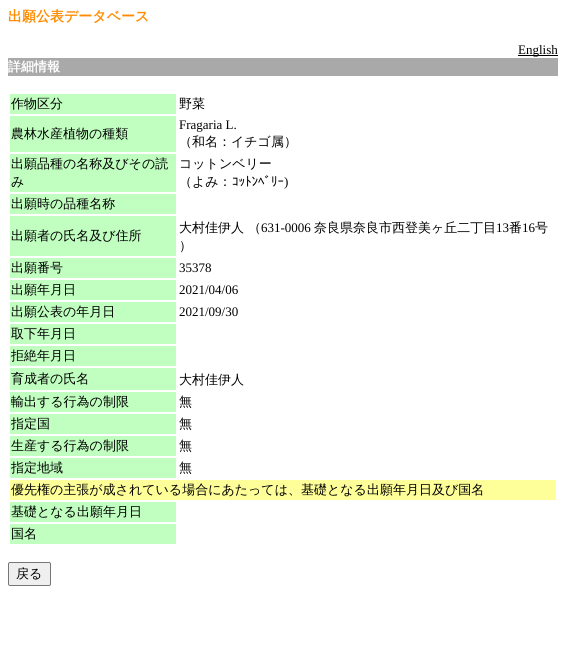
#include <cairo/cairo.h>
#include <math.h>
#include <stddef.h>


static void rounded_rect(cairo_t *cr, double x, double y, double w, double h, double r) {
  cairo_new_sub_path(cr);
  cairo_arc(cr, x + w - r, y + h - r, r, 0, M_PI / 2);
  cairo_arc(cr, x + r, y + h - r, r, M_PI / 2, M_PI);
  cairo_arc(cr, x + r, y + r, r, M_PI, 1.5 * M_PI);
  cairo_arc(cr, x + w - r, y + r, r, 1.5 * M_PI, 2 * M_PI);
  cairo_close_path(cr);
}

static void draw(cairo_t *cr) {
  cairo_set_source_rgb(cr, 1, 1, 1);
  cairo_paint(cr);
  cairo_set_source_rgb(cr, 0, 0, 0);
  cairo_rectangle(cr, 518, 55, 40, 1);
  cairo_fill(cr);
  cairo_set_source_rgb(cr, 169 / 255.0, 169 / 255.0, 169 / 255.0);
  cairo_rectangle(cr, 8, 58, 550, 18);
  cairo_fill(cr);
  cairo_set_source_rgb(cr, 192 / 255.0, 1, 192 / 255.0);
  cairo_rectangle(cr, 10, 94, 166, 20);
  cairo_fill(cr);
  cairo_rectangle(cr, 10, 116, 166, 36);
  cairo_fill(cr);
  cairo_rectangle(cr, 10, 154, 166, 38);
  cairo_fill(cr);
  cairo_rectangle(cr, 10, 194, 166, 20);
  cairo_fill(cr);
  cairo_rectangle(cr, 10, 216, 166, 40);
  cairo_fill(cr);
  cairo_rectangle(cr, 10, 258, 166, 20);
  cairo_fill(cr);
  cairo_rectangle(cr, 10, 280, 166, 20);
  cairo_fill(cr);
  cairo_rectangle(cr, 10, 302, 166, 20);
  cairo_fill(cr);
  cairo_rectangle(cr, 10, 324, 166, 20);
  cairo_fill(cr);
  cairo_rectangle(cr, 10, 346, 166, 20);
  cairo_fill(cr);
  cairo_rectangle(cr, 10, 368, 166, 22);
  cairo_fill(cr);
  cairo_rectangle(cr, 10, 392, 166, 20);
  cairo_fill(cr);
  cairo_rectangle(cr, 10, 414, 166, 20);
  cairo_fill(cr);
  cairo_rectangle(cr, 10, 436, 166, 20);
  cairo_fill(cr);
  cairo_rectangle(cr, 10, 458, 166, 20);
  cairo_fill(cr);
  cairo_set_source_rgb(cr, 1, 1, 153 / 255.0);
  cairo_rectangle(cr, 10, 480, 546, 20);
  cairo_fill(cr);
  cairo_set_source_rgb(cr, 192 / 255.0, 1, 192 / 255.0);
  cairo_rectangle(cr, 10, 502, 166, 20);
  cairo_fill(cr);
  cairo_rectangle(cr, 10, 524, 166, 20);
  cairo_fill(cr);
  cairo_set_source_rgb(cr, 239 / 255.0, 239 / 255.0, 239 / 255.0);
  rounded_rect(cr, 8.5, 562.5, 42, 23, 1.5);
  cairo_fill_preserve(cr);
  cairo_set_source_rgb(cr, 118 / 255.0, 118 / 255.0, 118 / 255.0);
  cairo_set_line_width(cr, 1);
  cairo_stroke(cr);
  cairo_select_font_face(cr, "WenQuanYi Zen Hei", CAIRO_FONT_SLANT_NORMAL, CAIRO_FONT_WEIGHT_BOLD);
  cairo_set_font_size(cr, 14);
  cairo_set_source_rgb(cr, 1, 140 / 255.0, 0);
  cairo_move_to(cr, 8, 21);
  cairo_show_text(cr, "出願公表データベース");
  cairo_select_font_face(cr, "Liberation Serif", CAIRO_FONT_SLANT_NORMAL, CAIRO_FONT_WEIGHT_NORMAL);
  cairo_set_font_size(cr, 13);
  cairo_set_source_rgb(cr, 0, 0, 0);
  cairo_move_to(cr, 518, 54);
  cairo_show_text(cr, "English");
  cairo_select_font_face(cr, "WenQuanYi Zen Hei", CAIRO_FONT_SLANT_NORMAL, CAIRO_FONT_WEIGHT_BOLD);
  cairo_set_source_rgb(cr, 1, 1, 1);
  cairo_move_to(cr, 8, 71);
  cairo_show_text(cr, "詳細情報");
  cairo_select_font_face(cr, "WenQuanYi Zen Hei Medium", CAIRO_FONT_SLANT_NORMAL, CAIRO_FONT_WEIGHT_NORMAL);
  cairo_set_source_rgb(cr, 0, 0, 0);
  cairo_move_to(cr, 11, 108);
  cairo_show_text(cr, "作物区分");
  cairo_move_to(cr, 179, 108);
  cairo_show_text(cr, "野菜");
  cairo_move_to(cr, 11, 138);
  cairo_show_text(cr, "農林水産植物の種類");
  cairo_select_font_face(cr, "Liberation Serif", CAIRO_FONT_SLANT_NORMAL, CAIRO_FONT_WEIGHT_NORMAL);
  cairo_move_to(cr, 179, 129);
  cairo_show_text(cr, "Fragaria L.");
  cairo_select_font_face(cr, "WenQuanYi Zen Hei Medium", CAIRO_FONT_SLANT_NORMAL, CAIRO_FONT_WEIGHT_NORMAL);
  cairo_move_to(cr, 179, 146);
  cairo_show_text(cr, "（和名：イチゴ属）");
  cairo_move_to(cr, 11, 168);
  cairo_show_text(cr, "出願品種の名称及びその読");
  cairo_move_to(cr, 11, 186);
  cairo_show_text(cr, "み");
  cairo_move_to(cr, 179, 168);
  cairo_show_text(cr, "コットンベリー");
  cairo_move_to(cr, 179, 186);
  cairo_show_text(cr, "（よみ：");
  cairo_select_font_face(cr, "IPAGothic", CAIRO_FONT_SLANT_NORMAL, CAIRO_FONT_WEIGHT_NORMAL);
  cairo_move_to(cr, 232, 186);
  cairo_show_text(cr, "ｺｯﾄﾝﾍﾞﾘｰ");
  cairo_select_font_face(cr, "Liberation Serif", CAIRO_FONT_SLANT_NORMAL, CAIRO_FONT_WEIGHT_NORMAL);
  cairo_move_to(cr, 284, 186);
  cairo_show_text(cr, ")");
  cairo_select_font_face(cr, "WenQuanYi Zen Hei Medium", CAIRO_FONT_SLANT_NORMAL, CAIRO_FONT_WEIGHT_NORMAL);
  cairo_move_to(cr, 11, 208);
  cairo_show_text(cr, "出願時の品種名称");
  cairo_move_to(cr, 11, 240);
  cairo_show_text(cr, "出願者の氏名及び住所");
  cairo_move_to(cr, 179, 232);
  cairo_show_text(cr, "大村佳伊人");
  cairo_move_to(cr, 248, 232);
  cairo_show_text(cr, "（");
  cairo_select_font_face(cr, "Liberation Serif", CAIRO_FONT_SLANT_NORMAL, CAIRO_FONT_WEIGHT_NORMAL);
  cairo_move_to(cr, 261, 232);
  cairo_show_text(cr, "631-0006");
  cairo_select_font_face(cr, "WenQuanYi Zen Hei Medium", CAIRO_FONT_SLANT_NORMAL, CAIRO_FONT_WEIGHT_NORMAL);
  cairo_move_to(cr, 314, 232);
  cairo_show_text(cr, "奈良県奈良市西登美ヶ丘二丁目");
  cairo_select_font_face(cr, "Liberation Serif", CAIRO_FONT_SLANT_NORMAL, CAIRO_FONT_WEIGHT_NORMAL);
  cairo_move_to(cr, 496, 232);
  cairo_show_text(cr, "13");
  cairo_select_font_face(cr, "WenQuanYi Zen Hei Medium", CAIRO_FONT_SLANT_NORMAL, CAIRO_FONT_WEIGHT_NORMAL);
  cairo_move_to(cr, 509, 232);
  cairo_show_text(cr, "番");
  cairo_select_font_face(cr, "Liberation Serif", CAIRO_FONT_SLANT_NORMAL, CAIRO_FONT_WEIGHT_NORMAL);
  cairo_move_to(cr, 522, 232);
  cairo_show_text(cr, "16");
  cairo_select_font_face(cr, "WenQuanYi Zen Hei Medium", CAIRO_FONT_SLANT_NORMAL, CAIRO_FONT_WEIGHT_NORMAL);
  cairo_move_to(cr, 535, 232);
  cairo_show_text(cr, "号");
  cairo_move_to(cr, 179, 250);
  cairo_show_text(cr, "）");
  cairo_move_to(cr, 11, 272);
  cairo_show_text(cr, "出願番号");
  cairo_select_font_face(cr, "Liberation Serif", CAIRO_FONT_SLANT_NORMAL, CAIRO_FONT_WEIGHT_NORMAL);
  cairo_move_to(cr, 179, 272);
  cairo_show_text(cr, "35378");
  cairo_select_font_face(cr, "WenQuanYi Zen Hei Medium", CAIRO_FONT_SLANT_NORMAL, CAIRO_FONT_WEIGHT_NORMAL);
  cairo_move_to(cr, 11, 294);
  cairo_show_text(cr, "出願年月日");
  cairo_select_font_face(cr, "Liberation Serif", CAIRO_FONT_SLANT_NORMAL, CAIRO_FONT_WEIGHT_NORMAL);
  cairo_move_to(cr, 179, 294);
  cairo_show_text(cr, "2021/04/06");
  cairo_select_font_face(cr, "WenQuanYi Zen Hei Medium", CAIRO_FONT_SLANT_NORMAL, CAIRO_FONT_WEIGHT_NORMAL);
  cairo_move_to(cr, 11, 316);
  cairo_show_text(cr, "出願公表の年月日");
  cairo_select_font_face(cr, "Liberation Serif", CAIRO_FONT_SLANT_NORMAL, CAIRO_FONT_WEIGHT_NORMAL);
  cairo_move_to(cr, 179, 316);
  cairo_show_text(cr, "2021/09/30");
  cairo_select_font_face(cr, "WenQuanYi Zen Hei Medium", CAIRO_FONT_SLANT_NORMAL, CAIRO_FONT_WEIGHT_NORMAL);
  cairo_move_to(cr, 11, 338);
  cairo_show_text(cr, "取下年月日");
  cairo_move_to(cr, 11, 360);
  cairo_show_text(cr, "拒絶年月日");
  cairo_move_to(cr, 11, 383);
  cairo_show_text(cr, "育成者の氏名");
  cairo_move_to(cr, 179, 384);
  cairo_show_text(cr, "大村佳伊人");
  cairo_move_to(cr, 11, 406);
  cairo_show_text(cr, "輸出する行為の制限");
  cairo_move_to(cr, 179, 406);
  cairo_show_text(cr, "無");
  cairo_move_to(cr, 11, 428);
  cairo_show_text(cr, "指定国");
  cairo_move_to(cr, 179, 428);
  cairo_show_text(cr, "無");
  cairo_move_to(cr, 11, 450);
  cairo_show_text(cr, "生産する行為の制限");
  cairo_move_to(cr, 179, 450);
  cairo_show_text(cr, "無");
  cairo_move_to(cr, 11, 472);
  cairo_show_text(cr, "指定地域");
  cairo_move_to(cr, 179, 472);
  cairo_show_text(cr, "無");
  cairo_move_to(cr, 11, 494);
  cairo_show_text(cr, "優先権の主張が成されている場合にあたっては、基礎となる出願年月日及び国名");
  cairo_move_to(cr, 11, 516);
  cairo_show_text(cr, "基礎となる出願年月日");
  cairo_move_to(cr, 11, 538);
  cairo_show_text(cr, "国名");
  cairo_move_to(cr, 16, 578);
  cairo_show_text(cr, "戻る");
}

int main(void) {
  cairo_surface_t *surface = cairo_image_surface_create(CAIRO_FORMAT_RGB24, 566, 656);
  cairo_t *cr = cairo_create(surface);
  cairo_font_options_t *options = cairo_font_options_create();
  cairo_font_options_set_hint_metrics(options, CAIRO_HINT_METRICS_OFF);
  cairo_font_options_set_hint_style(options, CAIRO_HINT_STYLE_NONE);
  cairo_set_font_options(cr, options);
  cairo_set_miter_limit(cr, 4);
  draw(cr);
  cairo_surface_write_to_png(surface, "out.png");
  cairo_font_options_destroy(options);
  cairo_destroy(cr);
  cairo_surface_destroy(surface);
  return 0;
}
